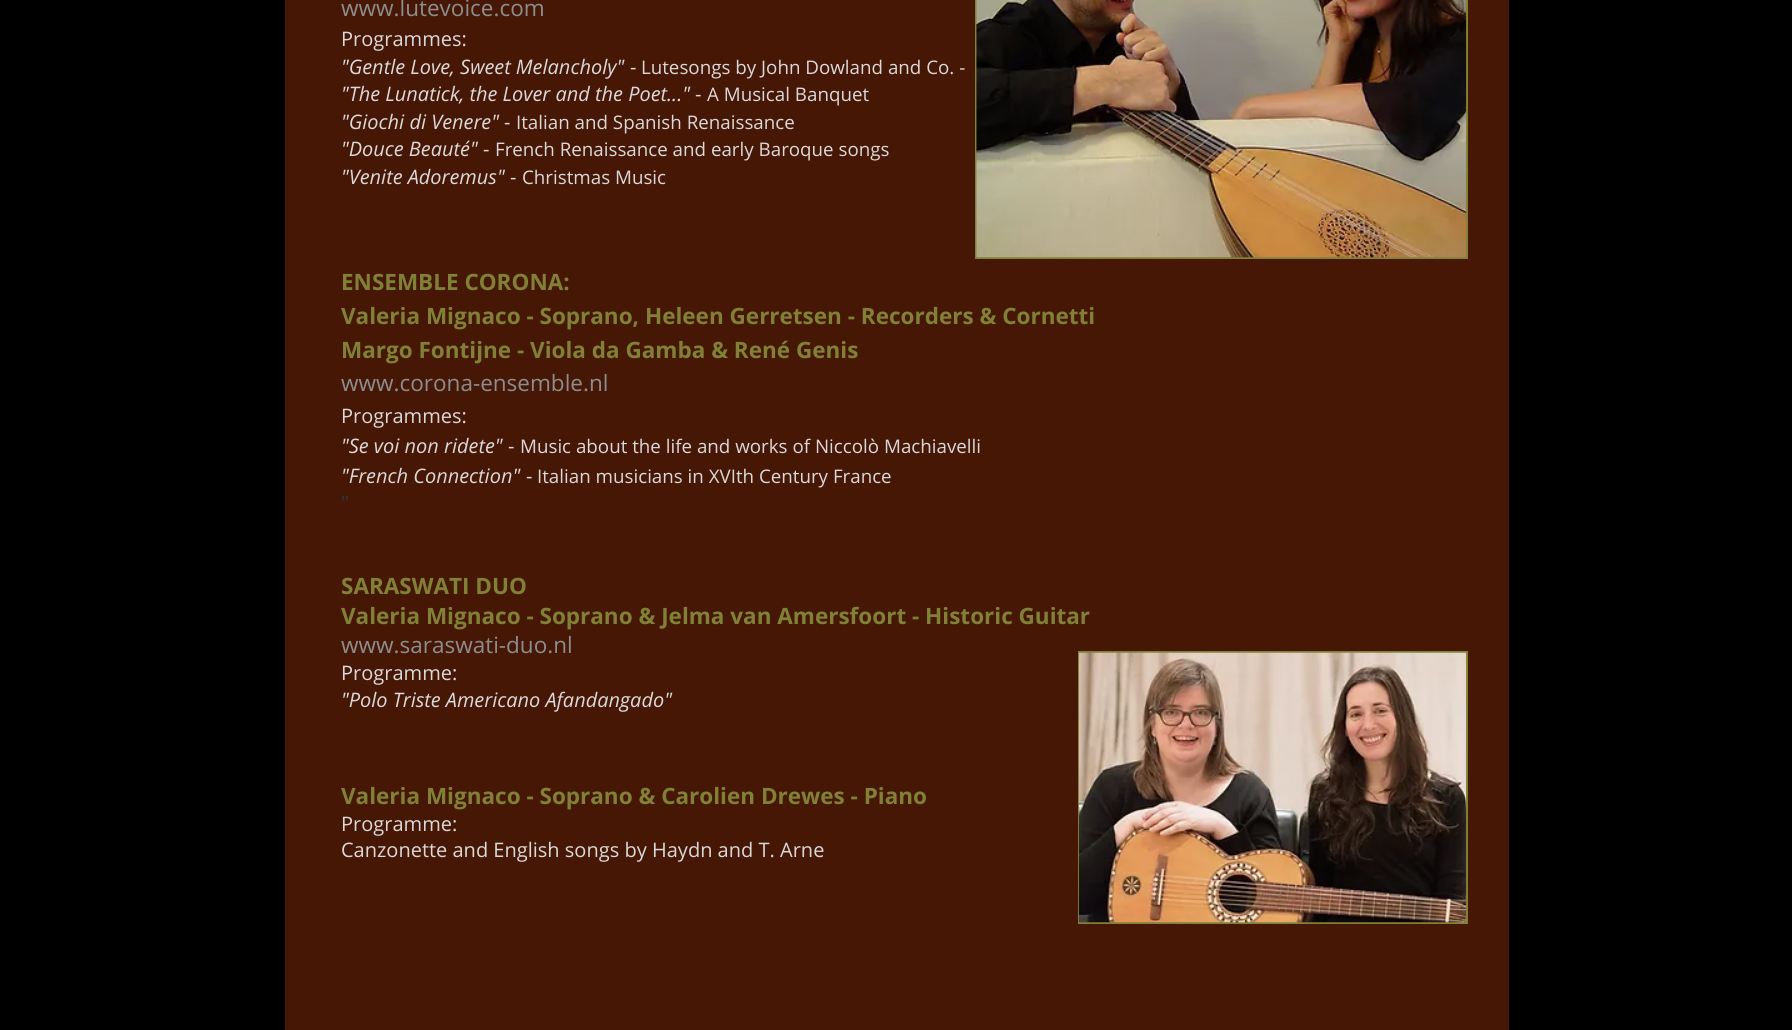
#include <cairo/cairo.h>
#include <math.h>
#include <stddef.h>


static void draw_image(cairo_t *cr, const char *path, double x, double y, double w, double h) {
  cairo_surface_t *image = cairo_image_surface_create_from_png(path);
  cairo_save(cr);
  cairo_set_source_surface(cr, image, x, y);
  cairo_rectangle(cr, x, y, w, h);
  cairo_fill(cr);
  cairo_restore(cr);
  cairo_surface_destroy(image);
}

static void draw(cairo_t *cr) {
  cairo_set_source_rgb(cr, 0, 0, 0);
  cairo_paint(cr);
  cairo_set_source_rgb(cr, 70 / 255.0, 23 / 255.0, 5 / 255.0);
  cairo_rectangle(cr, 285, 0, 1224, 1030);
  cairo_fill(cr);
  cairo_set_source_rgb(cr, 128 / 255.0, 129 / 255.0, 54 / 255.0);
  cairo_rectangle(cr, 975, 0, 493, 259);
  cairo_fill(cr);
  draw_image(cr, "images/1.png", 976, 0, 491, 258);
  cairo_rectangle(cr, 1078, 651, 390, 273);
  cairo_fill(cr);
  draw_image(cr, "images/2.png", 1078, 652, 389, 271);
  cairo_select_font_face(cr, "Open Sans", CAIRO_FONT_SLANT_NORMAL, CAIRO_FONT_WEIGHT_NORMAL);
  cairo_set_font_size(cr, 22.5);
  cairo_set_source_rgb(cr, 141 / 255.0, 141 / 255.0, 141 / 255.0);
  cairo_move_to(cr, 341, 16);
  cairo_show_text(cr, "www.lutevoice.com");
  cairo_set_font_size(cr, 20);
  cairo_set_source_rgb(cr, 218 / 255.0, 216 / 255.0, 216 / 255.0);
  cairo_move_to(cr, 341, 46);
  cairo_show_text(cr, "Programmes:");
  cairo_select_font_face(cr, "Open Sans", CAIRO_FONT_SLANT_ITALIC, CAIRO_FONT_WEIGHT_NORMAL);
  cairo_move_to(cr, 341, 74);
  cairo_show_text(cr, "\"Gentle Love, Sweet Melancholy\"");
  cairo_select_font_face(cr, "Open Sans", CAIRO_FONT_SLANT_NORMAL, CAIRO_FONT_WEIGHT_NORMAL);
  cairo_move_to(cr, 630, 74);
  cairo_show_text(cr, "-");
  cairo_set_font_size(cr, 18.75);
  cairo_move_to(cr, 641, 74);
  cairo_show_text(cr, "Lutesongs by John Dowland and Co. -");
  cairo_select_font_face(cr, "Open Sans", CAIRO_FONT_SLANT_ITALIC, CAIRO_FONT_WEIGHT_NORMAL);
  cairo_set_font_size(cr, 20);
  cairo_move_to(cr, 341, 101);
  cairo_show_text(cr, "\"The Lunatick, the Lover and the Poet...\"");
  cairo_select_font_face(cr, "Open Sans", CAIRO_FONT_SLANT_NORMAL, CAIRO_FONT_WEIGHT_NORMAL);
  cairo_move_to(cr, 695, 101);
  cairo_show_text(cr, "-");
  cairo_set_font_size(cr, 18.75);
  cairo_move_to(cr, 707, 101);
  cairo_show_text(cr, "A Musical Banquet");
  cairo_select_font_face(cr, "Open Sans", CAIRO_FONT_SLANT_ITALIC, CAIRO_FONT_WEIGHT_NORMAL);
  cairo_set_font_size(cr, 20);
  cairo_move_to(cr, 341, 129);
  cairo_show_text(cr, "\"Giochi di Venere\"");
  cairo_select_font_face(cr, "Open Sans", CAIRO_FONT_SLANT_NORMAL, CAIRO_FONT_WEIGHT_NORMAL);
  cairo_move_to(cr, 504, 129);
  cairo_show_text(cr, "-");
  cairo_set_font_size(cr, 18.75);
  cairo_move_to(cr, 516, 129);
  cairo_show_text(cr, "Italian and Spanish Renaissance");
  cairo_select_font_face(cr, "Open Sans", CAIRO_FONT_SLANT_ITALIC, CAIRO_FONT_WEIGHT_NORMAL);
  cairo_set_font_size(cr, 20);
  cairo_move_to(cr, 341, 156);
  cairo_show_text(cr, "\"Douce Beauté\"");
  cairo_select_font_face(cr, "Open Sans", CAIRO_FONT_SLANT_NORMAL, CAIRO_FONT_WEIGHT_NORMAL);
  cairo_move_to(cr, 483, 156);
  cairo_show_text(cr, "-");
  cairo_set_font_size(cr, 18.75);
  cairo_move_to(cr, 495, 156);
  cairo_show_text(cr, "French Renaissance and early Baroque songs");
  cairo_select_font_face(cr, "Open Sans", CAIRO_FONT_SLANT_ITALIC, CAIRO_FONT_WEIGHT_NORMAL);
  cairo_set_font_size(cr, 20);
  cairo_move_to(cr, 341, 184);
  cairo_show_text(cr, "\"Venite Adoremus\"");
  cairo_select_font_face(cr, "Open Sans", CAIRO_FONT_SLANT_NORMAL, CAIRO_FONT_WEIGHT_NORMAL);
  cairo_move_to(cr, 510, 184);
  cairo_show_text(cr, "-");
  cairo_set_font_size(cr, 18.75);
  cairo_move_to(cr, 522, 184);
  cairo_show_text(cr, "Christmas Music");
  cairo_select_font_face(cr, "Open Sans", CAIRO_FONT_SLANT_NORMAL, CAIRO_FONT_WEIGHT_BOLD);
  cairo_set_font_size(cr, 22.5);
  cairo_set_source_rgb(cr, 128 / 255.0, 129 / 255.0, 54 / 255.0);
  cairo_move_to(cr, 341, 290);
  cairo_show_text(cr, "ENSEMBLE CORONA:");
  cairo_move_to(cr, 341, 324);
  cairo_show_text(cr, "Valeria Mignaco - Soprano, Heleen Gerretsen - Recorders & Cornetti");
  cairo_move_to(cr, 341, 358);
  cairo_show_text(cr, "Margo Fontijne - Viola da Gamba & René Genis");
  cairo_select_font_face(cr, "Open Sans", CAIRO_FONT_SLANT_NORMAL, CAIRO_FONT_WEIGHT_NORMAL);
  cairo_set_source_rgb(cr, 141 / 255.0, 141 / 255.0, 141 / 255.0);
  cairo_move_to(cr, 341, 391);
  cairo_show_text(cr, "www.corona-ensemble.nl");
  cairo_set_font_size(cr, 20);
  cairo_set_source_rgb(cr, 218 / 255.0, 216 / 255.0, 216 / 255.0);
  cairo_move_to(cr, 341, 423);
  cairo_show_text(cr, "Programmes:");
  cairo_select_font_face(cr, "Open Sans", CAIRO_FONT_SLANT_ITALIC, CAIRO_FONT_WEIGHT_NORMAL);
  cairo_move_to(cr, 341, 453);
  cairo_show_text(cr, "\"Se voi non ridete\"");
  cairo_select_font_face(cr, "Open Sans", CAIRO_FONT_SLANT_NORMAL, CAIRO_FONT_WEIGHT_NORMAL);
  cairo_move_to(cr, 508, 453);
  cairo_show_text(cr, "-");
  cairo_set_font_size(cr, 18.75);
  cairo_move_to(cr, 520, 453);
  cairo_show_text(cr, "Music about the life and works of Niccolò Machiavelli");
  cairo_select_font_face(cr, "Open Sans", CAIRO_FONT_SLANT_ITALIC, CAIRO_FONT_WEIGHT_NORMAL);
  cairo_set_font_size(cr, 20);
  cairo_move_to(cr, 341, 483);
  cairo_show_text(cr, "\"French Connection\"");
  cairo_select_font_face(cr, "Open Sans", CAIRO_FONT_SLANT_NORMAL, CAIRO_FONT_WEIGHT_NORMAL);
  cairo_move_to(cr, 526, 483);
  cairo_show_text(cr, "-");
  cairo_set_font_size(cr, 18.75);
  cairo_move_to(cr, 537, 483);
  cairo_show_text(cr, "Italian musicians in XVIth Century France");
  cairo_set_font_size(cr, 20);
  cairo_set_source_rgb(cr, 53 / 255.0, 53 / 255.0, 53 / 255.0);
  cairo_move_to(cr, 341, 510);
  cairo_show_text(cr, "\"");
  cairo_select_font_face(cr, "Open Sans", CAIRO_FONT_SLANT_NORMAL, CAIRO_FONT_WEIGHT_BOLD);
  cairo_set_font_size(cr, 22.5);
  cairo_set_source_rgb(cr, 128 / 255.0, 129 / 255.0, 54 / 255.0);
  cairo_move_to(cr, 341, 594);
  cairo_show_text(cr, "SARASWATI DUO");
  cairo_move_to(cr, 341, 624);
  cairo_show_text(cr, "Valeria Mignaco - Soprano & Jelma van Amersfoort - Historic Guitar");
  cairo_select_font_face(cr, "Open Sans", CAIRO_FONT_SLANT_NORMAL, CAIRO_FONT_WEIGHT_NORMAL);
  cairo_set_source_rgb(cr, 141 / 255.0, 141 / 255.0, 141 / 255.0);
  cairo_move_to(cr, 341, 653);
  cairo_show_text(cr, "www.saraswati-duo.nl");
  cairo_set_font_size(cr, 20);
  cairo_set_source_rgb(cr, 218 / 255.0, 216 / 255.0, 216 / 255.0);
  cairo_move_to(cr, 341, 680);
  cairo_show_text(cr, "Programme:");
  cairo_select_font_face(cr, "Open Sans", CAIRO_FONT_SLANT_ITALIC, CAIRO_FONT_WEIGHT_NORMAL);
  cairo_move_to(cr, 341, 707);
  cairo_show_text(cr, "\"Polo Triste Americano Afandangado\"");
  cairo_select_font_face(cr, "Open Sans", CAIRO_FONT_SLANT_NORMAL, CAIRO_FONT_WEIGHT_BOLD);
  cairo_set_font_size(cr, 22.5);
  cairo_set_source_rgb(cr, 128 / 255.0, 129 / 255.0, 54 / 255.0);
  cairo_move_to(cr, 341, 804);
  cairo_show_text(cr, "Valeria Mignaco - Soprano & Carolien Drewes - Piano");
  cairo_select_font_face(cr, "Open Sans", CAIRO_FONT_SLANT_NORMAL, CAIRO_FONT_WEIGHT_NORMAL);
  cairo_set_font_size(cr, 20);
  cairo_set_source_rgb(cr, 218 / 255.0, 216 / 255.0, 216 / 255.0);
  cairo_move_to(cr, 341, 831);
  cairo_show_text(cr, "Programme:");
  cairo_move_to(cr, 341, 857);
  cairo_show_text(cr, "Canzonette and English songs by Haydn and T. Arne");
}

int main(void) {
  cairo_surface_t *surface = cairo_image_surface_create(CAIRO_FORMAT_RGB24, 1792, 1030);
  cairo_t *cr = cairo_create(surface);
  cairo_font_options_t *options = cairo_font_options_create();
  cairo_font_options_set_hint_metrics(options, CAIRO_HINT_METRICS_OFF);
  cairo_font_options_set_hint_style(options, CAIRO_HINT_STYLE_NONE);
  cairo_set_font_options(cr, options);
  cairo_set_miter_limit(cr, 4);
  draw(cr);
  cairo_surface_write_to_png(surface, "out.png");
  cairo_font_options_destroy(options);
  cairo_destroy(cr);
  cairo_surface_destroy(surface);
  return 0;
}
